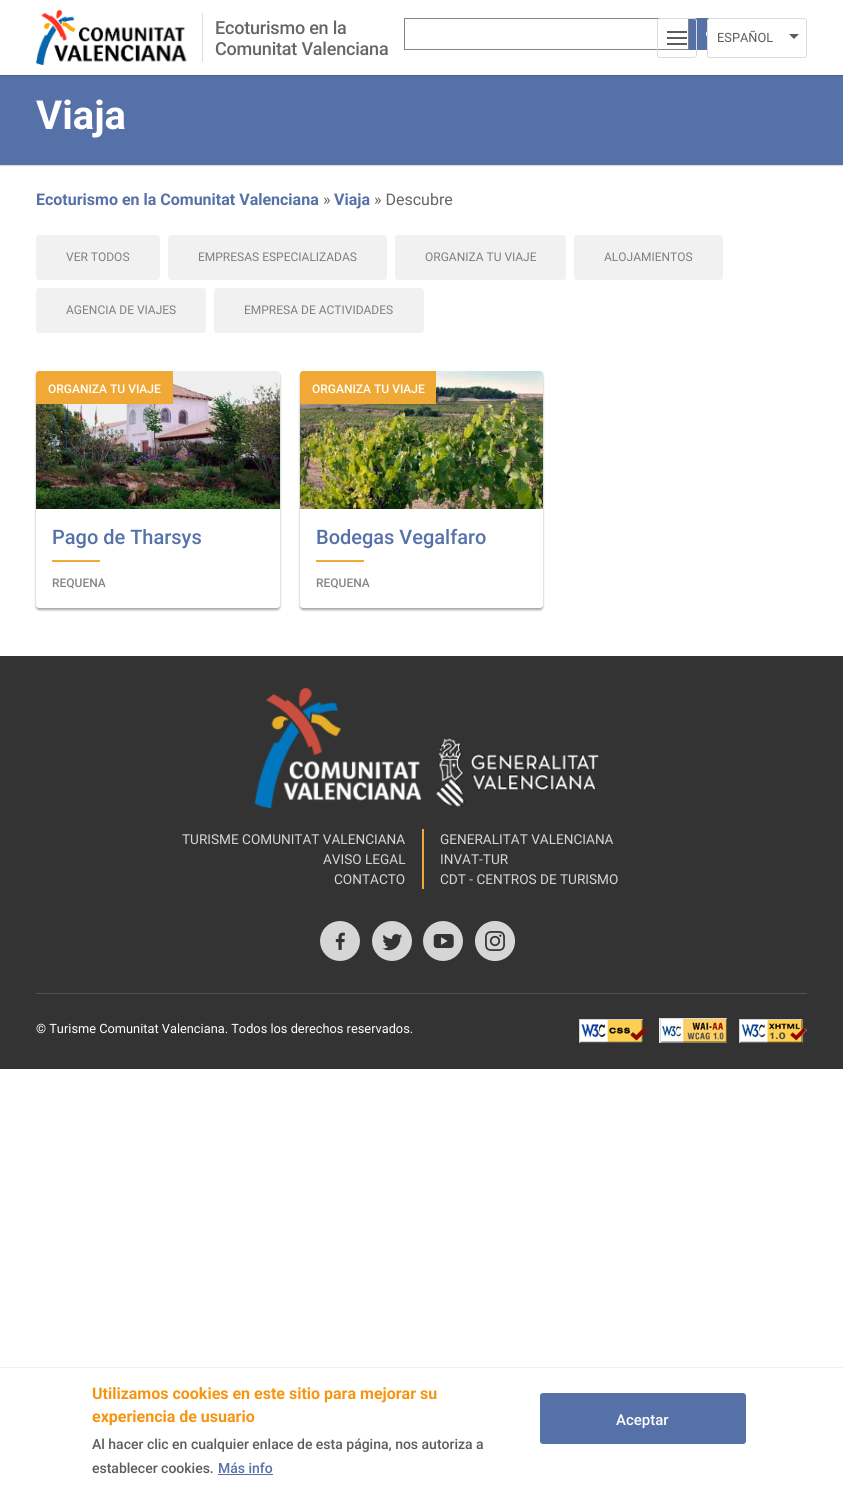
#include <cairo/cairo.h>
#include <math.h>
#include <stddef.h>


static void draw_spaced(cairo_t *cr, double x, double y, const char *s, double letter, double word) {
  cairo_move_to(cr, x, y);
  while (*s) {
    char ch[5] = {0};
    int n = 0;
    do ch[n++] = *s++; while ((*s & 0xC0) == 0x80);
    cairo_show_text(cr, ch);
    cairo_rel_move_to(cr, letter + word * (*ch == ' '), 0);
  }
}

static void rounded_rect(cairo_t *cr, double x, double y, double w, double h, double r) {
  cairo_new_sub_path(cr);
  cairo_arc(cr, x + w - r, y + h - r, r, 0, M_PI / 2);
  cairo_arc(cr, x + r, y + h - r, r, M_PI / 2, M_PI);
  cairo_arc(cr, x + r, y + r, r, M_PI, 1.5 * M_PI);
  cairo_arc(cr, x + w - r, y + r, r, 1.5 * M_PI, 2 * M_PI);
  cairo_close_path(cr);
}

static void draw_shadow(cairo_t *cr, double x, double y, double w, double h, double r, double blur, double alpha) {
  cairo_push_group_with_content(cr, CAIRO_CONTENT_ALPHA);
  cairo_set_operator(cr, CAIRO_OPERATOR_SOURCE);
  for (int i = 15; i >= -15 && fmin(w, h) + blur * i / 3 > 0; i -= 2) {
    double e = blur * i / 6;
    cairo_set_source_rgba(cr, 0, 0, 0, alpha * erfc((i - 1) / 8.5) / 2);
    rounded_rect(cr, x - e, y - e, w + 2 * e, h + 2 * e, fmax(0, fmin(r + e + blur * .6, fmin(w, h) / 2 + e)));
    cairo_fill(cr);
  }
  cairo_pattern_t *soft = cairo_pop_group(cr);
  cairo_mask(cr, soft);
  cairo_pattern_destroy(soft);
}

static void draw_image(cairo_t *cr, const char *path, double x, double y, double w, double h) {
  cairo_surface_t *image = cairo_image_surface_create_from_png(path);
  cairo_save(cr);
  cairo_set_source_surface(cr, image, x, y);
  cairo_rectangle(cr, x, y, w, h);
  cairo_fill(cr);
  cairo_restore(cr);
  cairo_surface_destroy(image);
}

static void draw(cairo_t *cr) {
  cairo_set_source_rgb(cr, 1, 1, 1);
  cairo_paint(cr);
  cairo_set_source_rgb(cr, 0, 0, 0);
  draw_shadow(cr, 0, 76, 843, 90, 0, 0.5, 0.15);
  cairo_set_source_rgb(cr, 86 / 255.0, 112 / 255.0, 168 / 255.0);
  cairo_rectangle(cr, 0, 75, 843, 90);
  cairo_fill(cr);
  cairo_save(cr);
  cairo_rectangle(cr, 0, 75, 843, 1);
  cairo_clip(cr);
  cairo_set_source_rgb(cr, 0, 0, 0);
  draw_shadow(cr, 0, 1, 843, 75, 0, 0.5, 0.15);
  cairo_restore(cr);
  cairo_rectangle(cr, 404.5, 18.5, 284, 31);
  cairo_set_source_rgb(cr, 132 / 255.0, 132 / 255.0, 132 / 255.0);
  cairo_set_line_width(cr, 1);
  cairo_stroke(cr);
  cairo_set_source_rgb(cr, 86 / 255.0, 112 / 255.0, 168 / 255.0);
  cairo_rectangle(cr, 689, 18, 21, 32);
  cairo_fill(cr);
  rounded_rect(cr, 657.5, 18.5, 39, 39, 2.5);
  cairo_set_source_rgb(cr, 220 / 255.0, 220 / 255.0, 220 / 255.0);
  cairo_stroke(cr);
  cairo_set_source_rgb(cr, 92 / 255.0, 92 / 255.0, 92 / 255.0);
  cairo_rectangle(cr, 667, 37, 20, 2);
  cairo_fill(cr);
  cairo_rectangle(cr, 667, 31, 20, 2);
  cairo_fill(cr);
  cairo_rectangle(cr, 667, 43, 20, 2);
  cairo_fill(cr);
  draw_image(cr, "images/1.png", 36, 10, 151, 55);
  cairo_set_source_rgb(cr, 220 / 255.0, 220 / 255.0, 220 / 255.0);
  cairo_rectangle(cr, 202, 13, 1, 49);
  cairo_fill(cr);
  draw_image(cr, "images/2.png", 706, 31, 1, 6);
  cairo_set_source_rgb(cr, 1, 1, 1);
  rounded_rect(cr, 707.5, 18.5, 99, 39, 2.5);
  cairo_fill_preserve(cr);
  cairo_set_source_rgb(cr, 220 / 255.0, 220 / 255.0, 220 / 255.0);
  cairo_stroke(cr);
  draw_image(cr, "images/3.png", 789, 34, 10, 5);
  cairo_set_source_rgb(cr, 241 / 255.0, 241 / 255.0, 241 / 255.0);
  rounded_rect(cr, 36, 235, 124, 45, 3);
  cairo_fill(cr);
  rounded_rect(cr, 168, 235, 219, 45, 3);
  cairo_fill(cr);
  rounded_rect(cr, 395, 235, 171, 45, 3);
  cairo_fill(cr);
  rounded_rect(cr, 574, 235, 149, 45, 3);
  cairo_fill(cr);
  rounded_rect(cr, 36, 288, 170, 45, 3);
  cairo_fill(cr);
  rounded_rect(cr, 214, 288, 210, 45, 3);
  cairo_fill(cr);
  cairo_set_source_rgb(cr, 0, 0, 0);
  draw_shadow(cr, 36, 373, 244, 237, 3, 1, 0.34);
  cairo_set_source_rgb(cr, 1, 1, 1);
  rounded_rect(cr, 36, 371, 244, 237, 3);
  cairo_fill(cr);
  draw_image(cr, "images/4.png", 36, 371, 244, 138);
  cairo_set_source_rgb(cr, 240 / 255.0, 169 / 255.0, 54 / 255.0);
  cairo_new_path(cr);
  cairo_move_to(cr, 39, 371);
  cairo_line_to(cr, 173, 371);
  cairo_line_to(cr, 173, 404);
  cairo_line_to(cr, 36, 404);
  cairo_line_to(cr, 36, 374);
  cairo_curve_to(cr, 36, 372.5, 37.5, 371, 39, 371);
  cairo_close_path(cr);
  cairo_fill(cr);
  cairo_rectangle(cr, 52, 560, 48, 2);
  cairo_fill(cr);
  cairo_set_source_rgb(cr, 0, 0, 0);
  draw_shadow(cr, 300, 373, 243, 237, 3, 1, 0.34);
  cairo_set_source_rgb(cr, 1, 1, 1);
  rounded_rect(cr, 300, 371, 243, 237, 3);
  cairo_fill(cr);
  draw_image(cr, "images/5.png", 300, 371, 243, 138);
  cairo_set_source_rgb(cr, 240 / 255.0, 169 / 255.0, 54 / 255.0);
  cairo_new_path(cr);
  cairo_move_to(cr, 303, 371);
  cairo_line_to(cr, 436, 371);
  cairo_line_to(cr, 436, 404);
  cairo_line_to(cr, 300, 404);
  cairo_line_to(cr, 300, 374);
  cairo_curve_to(cr, 300, 372.5, 301.5, 371, 303, 371);
  cairo_close_path(cr);
  cairo_fill(cr);
  cairo_rectangle(cr, 316, 560, 48, 2);
  cairo_fill(cr);
  cairo_set_source_rgb(cr, 51 / 255.0, 51 / 255.0, 51 / 255.0);
  cairo_rectangle(cr, 0, 656, 843, 413);
  cairo_fill(cr);
  draw_image(cr, "images/6.png", 255, 688, 166, 120);
  draw_image(cr, "images/7.png", 436, 737, 163, 70);
  cairo_set_source_rgb(cr, 240 / 255.0, 169 / 255.0, 54 / 255.0);
  cairo_rectangle(cr, 422, 829, 2, 60);
  cairo_fill(cr);
  draw_image(cr, "images/8.png", 320, 921, 40, 40);
  draw_image(cr, "images/9.png", 372, 921, 40, 40);
  draw_image(cr, "images/10.png", 423, 921, 40, 40);
  draw_image(cr, "images/11.png", 475, 921, 40, 40);
  cairo_set_source_rgb(cr, 84 / 255.0, 83 / 255.0, 83 / 255.0);
  cairo_rectangle(cr, 36, 993, 771, 1);
  cairo_fill(cr);
  draw_image(cr, "images/12.png", 579, 1019, 68, 24);
  draw_image(cr, "images/13.png", 659, 1018, 68, 25);
  draw_image(cr, "images/14.png", 739, 1019, 68, 24);
  cairo_set_source_rgb(cr, 241 / 255.0, 241 / 255.0, 241 / 255.0);
  cairo_rectangle(cr, 0, 1367, 843, 1);
  cairo_fill(cr);
  cairo_set_source_rgb(cr, 86 / 255.0, 112 / 255.0, 168 / 255.0);
  cairo_rectangle(cr, 218, 1474, 55, 1);
  cairo_fill(cr);
  rounded_rect(cr, 540.5, 1393.5, 205, 50, 2.5);
  cairo_fill_preserve(cr);
  cairo_stroke(cr);
  cairo_select_font_face(cr, "Roboto Medium", CAIRO_FONT_SLANT_NORMAL, CAIRO_FONT_WEIGHT_NORMAL);
  cairo_set_font_size(cr, 18);
  cairo_set_source_rgb(cr, 102 / 255.0, 102 / 255.0, 102 / 255.0);
  draw_spaced(cr, 215, 34, "Ecoturismo en la", -0.2, 0);
  draw_spaced(cr, 215, 55, "Comunitat Valenciana", -0.2, 0);
  cairo_select_font_face(cr, "Roboto", CAIRO_FONT_SLANT_NORMAL, CAIRO_FONT_WEIGHT_NORMAL);
  cairo_set_font_size(cr, 12.8);
  cairo_set_source_rgb(cr, 92 / 255.0, 92 / 255.0, 92 / 255.0);
  cairo_move_to(cr, 717, 42);
  cairo_show_text(cr, "ESPAÑOL");
  cairo_select_font_face(cr, "Roboto", CAIRO_FONT_SLANT_NORMAL, CAIRO_FONT_WEIGHT_BOLD);
  cairo_set_font_size(cr, 40);
  cairo_set_source_rgb(cr, 1, 1, 1);
  cairo_move_to(cr, 36, 129);
  cairo_show_text(cr, "Viaja");
  cairo_set_font_size(cr, 16);
  cairo_set_source_rgb(cr, 86 / 255.0, 112 / 255.0, 168 / 255.0);
  cairo_move_to(cr, 36, 205);
  cairo_show_text(cr, "Ecoturismo en la Comunitat Valenciana");
  cairo_select_font_face(cr, "Roboto", CAIRO_FONT_SLANT_NORMAL, CAIRO_FONT_WEIGHT_NORMAL);
  cairo_set_source_rgb(cr, 102 / 255.0, 102 / 255.0, 102 / 255.0);
  cairo_move_to(cr, 323, 205);
  cairo_show_text(cr, "»");
  cairo_select_font_face(cr, "Roboto", CAIRO_FONT_SLANT_NORMAL, CAIRO_FONT_WEIGHT_BOLD);
  cairo_set_source_rgb(cr, 86 / 255.0, 112 / 255.0, 168 / 255.0);
  cairo_move_to(cr, 334, 205);
  cairo_show_text(cr, "Viaja");
  cairo_select_font_face(cr, "Roboto", CAIRO_FONT_SLANT_NORMAL, CAIRO_FONT_WEIGHT_NORMAL);
  cairo_set_source_rgb(cr, 102 / 255.0, 102 / 255.0, 102 / 255.0);
  cairo_move_to(cr, 374, 205);
  cairo_show_text(cr, "» Descubre");
  cairo_set_font_size(cr, 12);
  cairo_set_source_rgb(cr, 127 / 255.0, 127 / 255.0, 127 / 255.0);
  cairo_move_to(cr, 66, 261);
  cairo_show_text(cr, "VER TODOS");
  cairo_move_to(cr, 198, 261);
  cairo_show_text(cr, "EMPRESAS ESPECIALIZADAS");
  cairo_move_to(cr, 425, 261);
  cairo_show_text(cr, "ORGANIZA TU VIAJE");
  cairo_move_to(cr, 604, 261);
  cairo_show_text(cr, "ALOJAMIENTOS");
  cairo_move_to(cr, 66, 314);
  cairo_show_text(cr, "AGENCIA DE VIAJES");
  cairo_move_to(cr, 244, 314);
  cairo_show_text(cr, "EMPRESA DE ACTIVIDADES");
  cairo_select_font_face(cr, "Roboto Medium", CAIRO_FONT_SLANT_NORMAL, CAIRO_FONT_WEIGHT_NORMAL);
  cairo_set_source_rgb(cr, 1, 1, 1);
  cairo_move_to(cr, 48, 393);
  cairo_show_text(cr, "ORGANIZA TU VIAJE");
  cairo_set_font_size(cr, 20);
  cairo_set_source_rgb(cr, 86 / 255.0, 112 / 255.0, 168 / 255.0);
  cairo_move_to(cr, 52, 544);
  cairo_show_text(cr, "Pago de Tharsys");
  cairo_set_font_size(cr, 12);
  cairo_set_source_rgb(cr, 133 / 255.0, 133 / 255.0, 133 / 255.0);
  cairo_move_to(cr, 52, 587);
  cairo_show_text(cr, "REQUENA");
  cairo_set_source_rgb(cr, 1, 1, 1);
  cairo_move_to(cr, 312, 393);
  cairo_show_text(cr, "ORGANIZA TU VIAJE");
  cairo_set_font_size(cr, 20);
  cairo_set_source_rgb(cr, 86 / 255.0, 112 / 255.0, 168 / 255.0);
  cairo_move_to(cr, 316, 544);
  cairo_show_text(cr, "Bodegas Vegalfaro");
  cairo_set_font_size(cr, 12);
  cairo_set_source_rgb(cr, 133 / 255.0, 133 / 255.0, 133 / 255.0);
  cairo_move_to(cr, 316, 587);
  cairo_show_text(cr, "REQUENA");
  cairo_select_font_face(cr, "Roboto", CAIRO_FONT_SLANT_NORMAL, CAIRO_FONT_WEIGHT_NORMAL);
  cairo_set_font_size(cr, 13.6);
  cairo_set_source_rgb(cr, 214 / 255.0, 214 / 255.0, 214 / 255.0);
  cairo_move_to(cr, 182, 844);
  cairo_show_text(cr, "TURISME COMUNITAT VALENCIANA");
  cairo_move_to(cr, 323, 864);
  cairo_show_text(cr, "AVISO LEGAL");
  cairo_move_to(cr, 334, 884);
  cairo_show_text(cr, "CONTACTO");
  cairo_move_to(cr, 440, 844);
  cairo_show_text(cr, "GENERALITAT VALENCIANA");
  cairo_move_to(cr, 440, 864);
  cairo_show_text(cr, "INVAT-TUR");
  cairo_move_to(cr, 440, 884);
  cairo_show_text(cr, "CDT - CENTROS DE TURISMO");
  cairo_set_font_size(cr, 12.8);
  cairo_set_source_rgb(cr, 1, 1, 1);
  cairo_move_to(cr, 36, 1033);
  cairo_show_text(cr, "© Turisme Comunitat Valenciana. Todos los derechos reservados.");
  cairo_select_font_face(cr, "Roboto", CAIRO_FONT_SLANT_NORMAL, CAIRO_FONT_WEIGHT_BOLD);
  cairo_set_font_size(cr, 16);
  cairo_set_source_rgb(cr, 245 / 255.0, 149 / 255.0, 17 / 255.0);
  cairo_move_to(cr, 92, 1399);
  cairo_show_text(cr, "Utilizamos cookies en este sitio para mejorar su");
  cairo_move_to(cr, 92, 1422);
  cairo_show_text(cr, "experiencia de usuario");
  cairo_select_font_face(cr, "Roboto Medium", CAIRO_FONT_SLANT_NORMAL, CAIRO_FONT_WEIGHT_NORMAL);
  cairo_set_font_size(cr, 14);
  cairo_set_source_rgb(cr, 92 / 255.0, 92 / 255.0, 92 / 255.0);
  cairo_move_to(cr, 92, 1449);
  cairo_show_text(cr, "Al hacer clic en cualquier enlace de esta página, nos autoriza a");
  cairo_move_to(cr, 92, 1473);
  cairo_show_text(cr, "establecer cookies.");
  cairo_set_source_rgb(cr, 86 / 255.0, 112 / 255.0, 168 / 255.0);
  cairo_move_to(cr, 218, 1473);
  cairo_show_text(cr, "Más info");
  cairo_set_font_size(cr, 15);
  cairo_set_source_rgb(cr, 1, 1, 1);
  cairo_move_to(cr, 616, 1425);
  cairo_show_text(cr, "Aceptar");
}

int main(void) {
  cairo_surface_t *surface = cairo_image_surface_create(CAIRO_FORMAT_RGB24, 843, 1496);
  cairo_t *cr = cairo_create(surface);
  cairo_font_options_t *options = cairo_font_options_create();
  cairo_font_options_set_hint_metrics(options, CAIRO_HINT_METRICS_OFF);
  cairo_font_options_set_hint_style(options, CAIRO_HINT_STYLE_NONE);
  cairo_set_font_options(cr, options);
  cairo_set_miter_limit(cr, 4);
  draw(cr);
  cairo_surface_write_to_png(surface, "out.png");
  cairo_font_options_destroy(options);
  cairo_destroy(cr);
  cairo_surface_destroy(surface);
  return 0;
}
